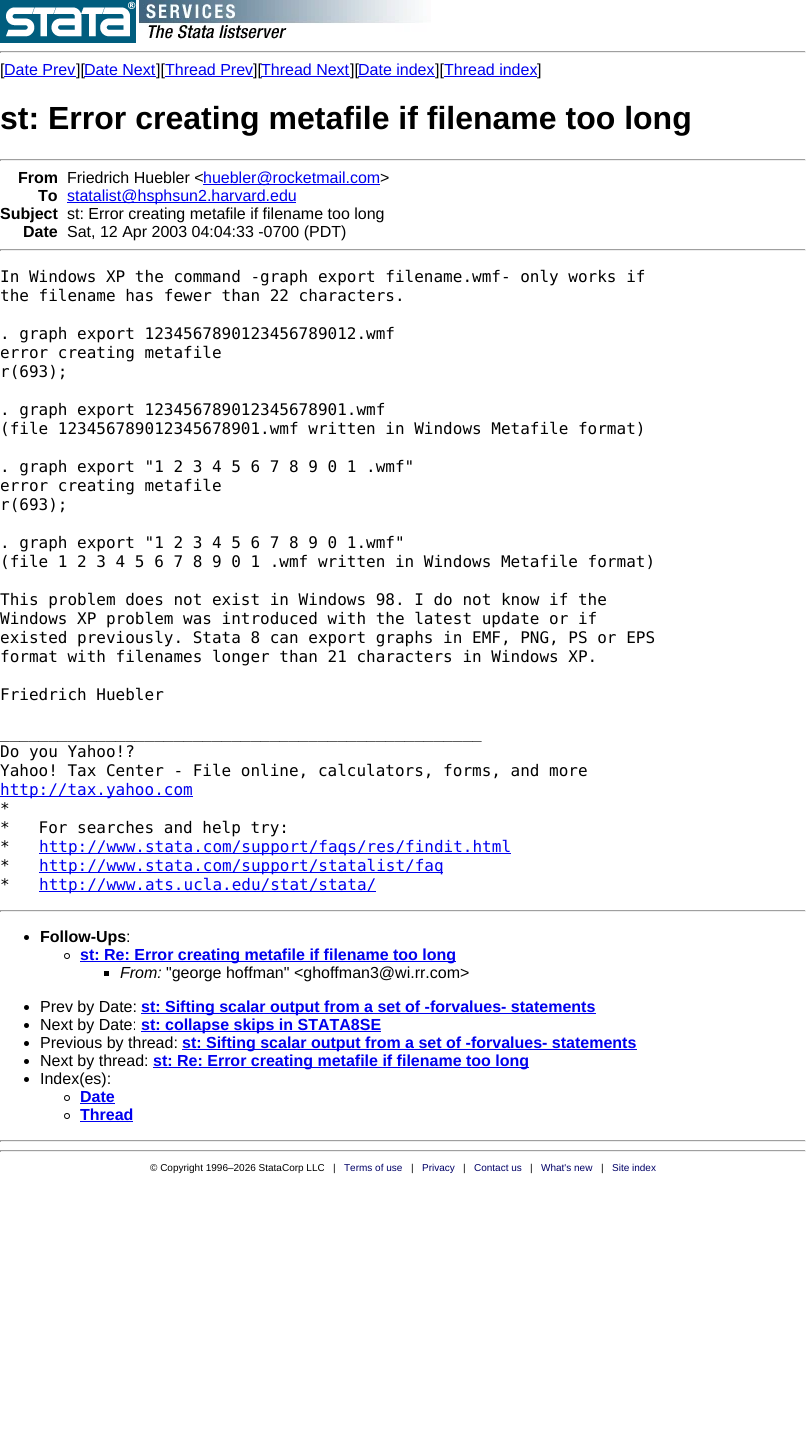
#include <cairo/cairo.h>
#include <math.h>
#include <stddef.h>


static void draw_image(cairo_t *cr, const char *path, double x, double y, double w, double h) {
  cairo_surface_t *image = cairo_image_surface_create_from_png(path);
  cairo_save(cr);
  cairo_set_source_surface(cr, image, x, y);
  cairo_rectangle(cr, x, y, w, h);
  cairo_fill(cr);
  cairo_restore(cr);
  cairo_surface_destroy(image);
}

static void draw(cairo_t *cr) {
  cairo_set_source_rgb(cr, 1, 1, 1);
  cairo_paint(cr);
  draw_image(cr, "images/1.png", 0, 0, 136, 43);
  draw_image(cr, "images/2.png", 139, 0, 292, 40);
  cairo_set_source_rgb(cr, 159 / 255.0, 159 / 255.0, 159 / 255.0);
  cairo_rectangle(cr, 0, 51, 806, 1);
  cairo_fill(cr);
  cairo_set_source_rgb(cr, 238 / 255.0, 238 / 255.0, 238 / 255.0);
  cairo_rectangle(cr, 805, 51, 1, 2);
  cairo_fill(cr);
  cairo_rectangle(cr, 0, 52, 806, 1);
  cairo_fill(cr);
  cairo_set_source_rgb(cr, 159 / 255.0, 159 / 255.0, 159 / 255.0);
  cairo_rectangle(cr, 0, 51, 1, 2);
  cairo_fill(cr);
  cairo_set_source_rgb(cr, 0, 0, 238 / 255.0);
  cairo_rectangle(cr, 165, 76, 88, 1);
  cairo_fill(cr);
  cairo_rectangle(cr, 444, 76, 93, 1);
  cairo_fill(cr);
  cairo_set_source_rgb(cr, 159 / 255.0, 159 / 255.0, 159 / 255.0);
  cairo_rectangle(cr, 0, 159, 806, 1);
  cairo_fill(cr);
  cairo_set_source_rgb(cr, 238 / 255.0, 238 / 255.0, 238 / 255.0);
  cairo_rectangle(cr, 805, 159, 1, 2);
  cairo_fill(cr);
  cairo_rectangle(cr, 0, 160, 806, 1);
  cairo_fill(cr);
  cairo_set_source_rgb(cr, 159 / 255.0, 159 / 255.0, 159 / 255.0);
  cairo_rectangle(cr, 0, 159, 1, 2);
  cairo_fill(cr);
  cairo_set_source_rgb(cr, 0, 0, 238 / 255.0);
  cairo_rectangle(cr, 203, 184, 177, 1);
  cairo_fill(cr);
  cairo_rectangle(cr, 67, 202, 229, 1);
  cairo_fill(cr);
  cairo_set_source_rgb(cr, 159 / 255.0, 159 / 255.0, 159 / 255.0);
  cairo_rectangle(cr, 0, 249, 806, 1);
  cairo_fill(cr);
  cairo_set_source_rgb(cr, 238 / 255.0, 238 / 255.0, 238 / 255.0);
  cairo_rectangle(cr, 805, 249, 1, 2);
  cairo_fill(cr);
  cairo_rectangle(cr, 0, 250, 806, 1);
  cairo_fill(cr);
  cairo_set_source_rgb(cr, 159 / 255.0, 159 / 255.0, 159 / 255.0);
  cairo_rectangle(cr, 0, 249, 1, 2);
  cairo_fill(cr);
  cairo_set_source_rgb(cr, 0, 0, 238 / 255.0);
  cairo_rectangle(cr, 0, 796, 193, 1);
  cairo_fill(cr);
  cairo_rectangle(cr, 39, 853, 472, 1);
  cairo_fill(cr);
  cairo_rectangle(cr, 39, 872, 404, 1);
  cairo_fill(cr);
  cairo_rectangle(cr, 39, 891, 337, 1);
  cairo_fill(cr);
  cairo_set_source_rgb(cr, 159 / 255.0, 159 / 255.0, 159 / 255.0);
  cairo_rectangle(cr, 0, 910, 806, 1);
  cairo_fill(cr);
  cairo_set_source_rgb(cr, 238 / 255.0, 238 / 255.0, 238 / 255.0);
  cairo_rectangle(cr, 805, 910, 1, 2);
  cairo_fill(cr);
  cairo_rectangle(cr, 0, 911, 806, 1);
  cairo_fill(cr);
  cairo_set_source_rgb(cr, 159 / 255.0, 159 / 255.0, 159 / 255.0);
  cairo_rectangle(cr, 0, 910, 1, 2);
  cairo_fill(cr);
  cairo_set_source_rgb(cr, 0, 0, 0);
  cairo_arc(cr, 26.5, 937.5, 2.5, 0, 2 * M_PI);
  cairo_fill(cr);
  cairo_arc(cr, 67, 956, 2.5, 0, 2 * M_PI);
  cairo_set_line_width(cr, 1);
  cairo_stroke(cr);
  cairo_set_source_rgb(cr, 0, 0, 238 / 255.0);
  cairo_rectangle(cr, 80, 961, 376, 1);
  cairo_fill(cr);
  cairo_set_source_rgb(cr, 0, 0, 0);
  cairo_rectangle(cr, 104, 971, 5, 5);
  cairo_fill(cr);
  cairo_arc(cr, 26.5, 1007.5, 2.5, 0, 2 * M_PI);
  cairo_fill(cr);
  cairo_set_source_rgb(cr, 0, 0, 238 / 255.0);
  cairo_rectangle(cr, 141, 1013, 455, 1);
  cairo_fill(cr);
  cairo_set_source_rgb(cr, 0, 0, 0);
  cairo_arc(cr, 26.5, 1025.5, 2.5, 0, 2 * M_PI);
  cairo_fill(cr);
  cairo_set_source_rgb(cr, 0, 0, 238 / 255.0);
  cairo_rectangle(cr, 141, 1031, 240, 1);
  cairo_fill(cr);
  cairo_set_source_rgb(cr, 0, 0, 0);
  cairo_arc(cr, 26.5, 1043.5, 2.5, 0, 2 * M_PI);
  cairo_fill(cr);
  cairo_set_source_rgb(cr, 0, 0, 238 / 255.0);
  cairo_rectangle(cr, 182, 1049, 455, 1);
  cairo_fill(cr);
  cairo_set_source_rgb(cr, 0, 0, 0);
  cairo_arc(cr, 26.5, 1061.5, 2.5, 0, 2 * M_PI);
  cairo_fill(cr);
  cairo_set_source_rgb(cr, 0, 0, 238 / 255.0);
  cairo_rectangle(cr, 153, 1067, 376, 1);
  cairo_fill(cr);
  cairo_set_source_rgb(cr, 0, 0, 0);
  cairo_arc(cr, 26.5, 1079.5, 2.5, 0, 2 * M_PI);
  cairo_fill(cr);
  cairo_arc(cr, 67, 1098, 2.5, 0, 2 * M_PI);
  cairo_stroke(cr);
  cairo_set_source_rgb(cr, 0, 0, 238 / 255.0);
  cairo_rectangle(cr, 80, 1103, 35, 1);
  cairo_fill(cr);
  cairo_arc(cr, 67, 1116, 2.5, 0, 2 * M_PI);
  cairo_set_source_rgb(cr, 0, 0, 0);
  cairo_stroke(cr);
  cairo_set_source_rgb(cr, 0, 0, 238 / 255.0);
  cairo_rectangle(cr, 80, 1121, 53, 1);
  cairo_fill(cr);
  cairo_set_source_rgb(cr, 159 / 255.0, 159 / 255.0, 159 / 255.0);
  cairo_rectangle(cr, 0, 1140, 806, 1);
  cairo_fill(cr);
  cairo_set_source_rgb(cr, 238 / 255.0, 238 / 255.0, 238 / 255.0);
  cairo_rectangle(cr, 805, 1140, 1, 2);
  cairo_fill(cr);
  cairo_rectangle(cr, 0, 1141, 806, 1);
  cairo_fill(cr);
  cairo_set_source_rgb(cr, 159 / 255.0, 159 / 255.0, 159 / 255.0);
  cairo_rectangle(cr, 0, 1140, 1, 2);
  cairo_fill(cr);
  cairo_rectangle(cr, 0, 1150, 806, 1);
  cairo_fill(cr);
  cairo_set_source_rgb(cr, 238 / 255.0, 238 / 255.0, 238 / 255.0);
  cairo_rectangle(cr, 805, 1150, 1, 2);
  cairo_fill(cr);
  cairo_rectangle(cr, 0, 1151, 806, 1);
  cairo_fill(cr);
  cairo_set_source_rgb(cr, 159 / 255.0, 159 / 255.0, 159 / 255.0);
  cairo_rectangle(cr, 0, 1150, 1, 2);
  cairo_fill(cr);
  cairo_select_font_face(cr, "Liberation Sans", CAIRO_FONT_SLANT_NORMAL, CAIRO_FONT_WEIGHT_NORMAL);
  cairo_set_font_size(cr, 16);
  cairo_set_source_rgb(cr, 0, 0, 0);
  cairo_move_to(cr, 0, 75);
  cairo_show_text(cr, "[");
  cairo_set_source_rgb(cr, 0, 0, 238 / 255.0);
  cairo_move_to(cr, 4, 75);
  cairo_show_text(cr, "Date Prev");
  cairo_rectangle(cr, 4, 76, 72, 1);
  cairo_fill(cr);
  cairo_set_source_rgb(cr, 0, 0, 0);
  cairo_move_to(cr, 76, 75);
  cairo_show_text(cr, "][");
  cairo_set_source_rgb(cr, 0, 0, 238 / 255.0);
  cairo_move_to(cr, 84, 75);
  cairo_show_text(cr, "Date Next");
  cairo_rectangle(cr, 84, 76, 72, 1);
  cairo_fill(cr);
  cairo_set_source_rgb(cr, 0, 0, 0);
  cairo_move_to(cr, 156, 75);
  cairo_show_text(cr, "][");
  cairo_set_source_rgb(cr, 0, 0, 238 / 255.0);
  cairo_move_to(cr, 165, 75);
  cairo_show_text(cr, "Thread Prev");
  cairo_set_source_rgb(cr, 0, 0, 0);
  cairo_move_to(cr, 253, 75);
  cairo_show_text(cr, "][");
  cairo_set_source_rgb(cr, 0, 0, 238 / 255.0);
  cairo_move_to(cr, 261, 75);
  cairo_show_text(cr, "Thread Next");
  cairo_rectangle(cr, 261, 76, 89, 1);
  cairo_fill(cr);
  cairo_set_source_rgb(cr, 0, 0, 0);
  cairo_move_to(cr, 350, 75);
  cairo_show_text(cr, "][");
  cairo_set_source_rgb(cr, 0, 0, 238 / 255.0);
  cairo_move_to(cr, 358, 75);
  cairo_show_text(cr, "Date index");
  cairo_rectangle(cr, 358, 76, 77, 1);
  cairo_fill(cr);
  cairo_set_source_rgb(cr, 0, 0, 0);
  cairo_move_to(cr, 435, 75);
  cairo_show_text(cr, "][");
  cairo_set_source_rgb(cr, 0, 0, 238 / 255.0);
  cairo_move_to(cr, 444, 75);
  cairo_show_text(cr, "Thread index");
  cairo_set_source_rgb(cr, 0, 0, 0);
  cairo_move_to(cr, 537, 75);
  cairo_show_text(cr, "]");
  cairo_select_font_face(cr, "Liberation Sans", CAIRO_FONT_SLANT_NORMAL, CAIRO_FONT_WEIGHT_BOLD);
  cairo_set_font_size(cr, 32);
  cairo_move_to(cr, 0, 129);
  cairo_show_text(cr, "st: Error creating metafile if filename too long");
  cairo_set_font_size(cr, 16);
  cairo_move_to(cr, 18, 183);
  cairo_show_text(cr, "From");
  cairo_select_font_face(cr, "Liberation Sans", CAIRO_FONT_SLANT_NORMAL, CAIRO_FONT_WEIGHT_NORMAL);
  cairo_move_to(cr, 67, 183);
  cairo_show_text(cr, "Friedrich Huebler <");
  cairo_set_source_rgb(cr, 0, 0, 238 / 255.0);
  cairo_move_to(cr, 203, 183);
  cairo_show_text(cr, "huebler@rocketmail.com");
  cairo_set_source_rgb(cr, 0, 0, 0);
  cairo_move_to(cr, 380, 183);
  cairo_show_text(cr, ">");
  cairo_select_font_face(cr, "Liberation Sans", CAIRO_FONT_SLANT_NORMAL, CAIRO_FONT_WEIGHT_BOLD);
  cairo_move_to(cr, 38, 201);
  cairo_show_text(cr, "To");
  cairo_select_font_face(cr, "Liberation Sans", CAIRO_FONT_SLANT_NORMAL, CAIRO_FONT_WEIGHT_NORMAL);
  cairo_set_source_rgb(cr, 0, 0, 238 / 255.0);
  cairo_move_to(cr, 67, 201);
  cairo_show_text(cr, "statalist@hsphsun2.harvard.edu");
  cairo_select_font_face(cr, "Liberation Sans", CAIRO_FONT_SLANT_NORMAL, CAIRO_FONT_WEIGHT_BOLD);
  cairo_set_source_rgb(cr, 0, 0, 0);
  cairo_move_to(cr, 0, 219);
  cairo_show_text(cr, "Subject");
  cairo_select_font_face(cr, "Liberation Sans", CAIRO_FONT_SLANT_NORMAL, CAIRO_FONT_WEIGHT_NORMAL);
  cairo_move_to(cr, 67, 219);
  cairo_show_text(cr, "st: Error creating metafile if filename too long");
  cairo_select_font_face(cr, "Liberation Sans", CAIRO_FONT_SLANT_NORMAL, CAIRO_FONT_WEIGHT_BOLD);
  cairo_move_to(cr, 23, 237);
  cairo_show_text(cr, "Date");
  cairo_select_font_face(cr, "Liberation Sans", CAIRO_FONT_SLANT_NORMAL, CAIRO_FONT_WEIGHT_NORMAL);
  cairo_move_to(cr, 67, 237);
  cairo_show_text(cr, "Sat, 12 Apr 2003 04:04:33 -0700 (PDT)");
  cairo_select_font_face(cr, "DejaVu Sans Mono", CAIRO_FONT_SLANT_NORMAL, CAIRO_FONT_WEIGHT_NORMAL);
  cairo_move_to(cr, 0, 282);
  cairo_show_text(cr, "In Windows XP the command -graph export filename.wmf- only works if");
  cairo_move_to(cr, 0, 301);
  cairo_show_text(cr, "the filename has fewer than 22 characters.");
  cairo_move_to(cr, 0, 339);
  cairo_show_text(cr, ". graph export 1234567890123456789012.wmf");
  cairo_move_to(cr, 0, 358);
  cairo_show_text(cr, "error creating metafile");
  cairo_move_to(cr, 0, 377);
  cairo_show_text(cr, "r(693);");
  cairo_move_to(cr, 0, 415);
  cairo_show_text(cr, ". graph export 123456789012345678901.wmf");
  cairo_move_to(cr, 0, 434);
  cairo_show_text(cr, "(file 123456789012345678901.wmf written in Windows Metafile format)");
  cairo_move_to(cr, 0, 472);
  cairo_show_text(cr, ". graph export \"1 2 3 4 5 6 7 8 9 0 1 .wmf\"");
  cairo_move_to(cr, 0, 491);
  cairo_show_text(cr, "error creating metafile");
  cairo_move_to(cr, 0, 510);
  cairo_show_text(cr, "r(693);");
  cairo_move_to(cr, 0, 548);
  cairo_show_text(cr, ". graph export \"1 2 3 4 5 6 7 8 9 0 1.wmf\"");
  cairo_move_to(cr, 0, 567);
  cairo_show_text(cr, "(file 1 2 3 4 5 6 7 8 9 0 1 .wmf written in Windows Metafile format)");
  cairo_move_to(cr, 0, 605);
  cairo_show_text(cr, "This problem does not exist in Windows 98. I do not know if the");
  cairo_move_to(cr, 0, 624);
  cairo_show_text(cr, "Windows XP problem was introduced with the latest update or if");
  cairo_move_to(cr, 0, 643);
  cairo_show_text(cr, "existed previously. Stata 8 can export graphs in EMF, PNG, PS or EPS");
  cairo_move_to(cr, 0, 662);
  cairo_show_text(cr, "format with filenames longer than 21 characters in Windows XP.");
  cairo_move_to(cr, 0, 700);
  cairo_show_text(cr, "Friedrich Huebler");
  cairo_move_to(cr, 0, 738);
  cairo_show_text(cr, "__________________________________________________");
  cairo_move_to(cr, 0, 757);
  cairo_show_text(cr, "Do you Yahoo!?");
  cairo_move_to(cr, 0, 776);
  cairo_show_text(cr, "Yahoo! Tax Center - File online, calculators, forms, and more");
  cairo_set_source_rgb(cr, 0, 0, 238 / 255.0);
  cairo_move_to(cr, 0, 795);
  cairo_show_text(cr, "http://tax.yahoo.com");
  cairo_set_source_rgb(cr, 0, 0, 0);
  cairo_move_to(cr, 0, 814);
  cairo_show_text(cr, "*");
  cairo_move_to(cr, 0, 833);
  cairo_show_text(cr, "*   For searches and help try:");
  cairo_move_to(cr, 0, 852);
  cairo_show_text(cr, "*");
  cairo_set_source_rgb(cr, 0, 0, 238 / 255.0);
  cairo_move_to(cr, 39, 852);
  cairo_show_text(cr, "http://www.stata.com/support/faqs/res/findit.html");
  cairo_set_source_rgb(cr, 0, 0, 0);
  cairo_move_to(cr, 0, 871);
  cairo_show_text(cr, "*");
  cairo_set_source_rgb(cr, 0, 0, 238 / 255.0);
  cairo_move_to(cr, 39, 871);
  cairo_show_text(cr, "http://www.stata.com/support/statalist/faq");
  cairo_set_source_rgb(cr, 0, 0, 0);
  cairo_move_to(cr, 0, 890);
  cairo_show_text(cr, "*");
  cairo_set_source_rgb(cr, 0, 0, 238 / 255.0);
  cairo_move_to(cr, 39, 890);
  cairo_show_text(cr, "http://www.ats.ucla.edu/stat/stata/");
  cairo_select_font_face(cr, "Liberation Sans", CAIRO_FONT_SLANT_NORMAL, CAIRO_FONT_WEIGHT_BOLD);
  cairo_set_source_rgb(cr, 0, 0, 0);
  cairo_move_to(cr, 40, 942);
  cairo_show_text(cr, "Follow-Ups");
  cairo_select_font_face(cr, "Liberation Sans", CAIRO_FONT_SLANT_NORMAL, CAIRO_FONT_WEIGHT_NORMAL);
  cairo_move_to(cr, 126, 942);
  cairo_show_text(cr, ":");
  cairo_select_font_face(cr, "Liberation Sans", CAIRO_FONT_SLANT_NORMAL, CAIRO_FONT_WEIGHT_BOLD);
  cairo_set_source_rgb(cr, 0, 0, 238 / 255.0);
  cairo_move_to(cr, 80, 960);
  cairo_show_text(cr, "st: Re: Error creating metafile if filename too long");
  cairo_select_font_face(cr, "Liberation Sans", CAIRO_FONT_SLANT_ITALIC, CAIRO_FONT_WEIGHT_NORMAL);
  cairo_set_source_rgb(cr, 0, 0, 0);
  cairo_move_to(cr, 120, 978);
  cairo_show_text(cr, "From:");
  cairo_select_font_face(cr, "Liberation Sans", CAIRO_FONT_SLANT_NORMAL, CAIRO_FONT_WEIGHT_NORMAL);
  cairo_move_to(cr, 166, 978);
  cairo_show_text(cr, "\"george hoffman\" <ghoffman3@wi.rr.com>");
  cairo_move_to(cr, 40, 1012);
  cairo_show_text(cr, "Prev by Date:");
  cairo_select_font_face(cr, "Liberation Sans", CAIRO_FONT_SLANT_NORMAL, CAIRO_FONT_WEIGHT_BOLD);
  cairo_set_source_rgb(cr, 0, 0, 238 / 255.0);
  cairo_move_to(cr, 141, 1012);
  cairo_show_text(cr, "st: Sifting scalar output from a set of -forvalues- statements");
  cairo_select_font_face(cr, "Liberation Sans", CAIRO_FONT_SLANT_NORMAL, CAIRO_FONT_WEIGHT_NORMAL);
  cairo_set_source_rgb(cr, 0, 0, 0);
  cairo_move_to(cr, 40, 1030);
  cairo_show_text(cr, "Next by Date:");
  cairo_select_font_face(cr, "Liberation Sans", CAIRO_FONT_SLANT_NORMAL, CAIRO_FONT_WEIGHT_BOLD);
  cairo_set_source_rgb(cr, 0, 0, 238 / 255.0);
  cairo_move_to(cr, 141, 1030);
  cairo_show_text(cr, "st: collapse skips in STATA8SE");
  cairo_select_font_face(cr, "Liberation Sans", CAIRO_FONT_SLANT_NORMAL, CAIRO_FONT_WEIGHT_NORMAL);
  cairo_set_source_rgb(cr, 0, 0, 0);
  cairo_move_to(cr, 40, 1048);
  cairo_show_text(cr, "Previous by thread:");
  cairo_select_font_face(cr, "Liberation Sans", CAIRO_FONT_SLANT_NORMAL, CAIRO_FONT_WEIGHT_BOLD);
  cairo_set_source_rgb(cr, 0, 0, 238 / 255.0);
  cairo_move_to(cr, 182, 1048);
  cairo_show_text(cr, "st: Sifting scalar output from a set of -forvalues- statements");
  cairo_select_font_face(cr, "Liberation Sans", CAIRO_FONT_SLANT_NORMAL, CAIRO_FONT_WEIGHT_NORMAL);
  cairo_set_source_rgb(cr, 0, 0, 0);
  cairo_move_to(cr, 40, 1066);
  cairo_show_text(cr, "Next by thread:");
  cairo_select_font_face(cr, "Liberation Sans", CAIRO_FONT_SLANT_NORMAL, CAIRO_FONT_WEIGHT_BOLD);
  cairo_set_source_rgb(cr, 0, 0, 238 / 255.0);
  cairo_move_to(cr, 153, 1066);
  cairo_show_text(cr, "st: Re: Error creating metafile if filename too long");
  cairo_select_font_face(cr, "Liberation Sans", CAIRO_FONT_SLANT_NORMAL, CAIRO_FONT_WEIGHT_NORMAL);
  cairo_set_source_rgb(cr, 0, 0, 0);
  cairo_move_to(cr, 40, 1084);
  cairo_show_text(cr, "Index(es):");
  cairo_select_font_face(cr, "Liberation Sans", CAIRO_FONT_SLANT_NORMAL, CAIRO_FONT_WEIGHT_BOLD);
  cairo_set_source_rgb(cr, 0, 0, 238 / 255.0);
  cairo_move_to(cr, 80, 1102);
  cairo_show_text(cr, "Date");
  cairo_move_to(cr, 80, 1120);
  cairo_show_text(cr, "Thread");
  cairo_select_font_face(cr, "Liberation Sans", CAIRO_FONT_SLANT_NORMAL, CAIRO_FONT_WEIGHT_NORMAL);
  cairo_set_font_size(cr, 10);
  cairo_set_source_rgb(cr, 0, 0, 0);
  cairo_move_to(cr, 150, 1171);
  cairo_show_text(cr, "© Copyright 1996–2026 StataCorp LLC");
  cairo_move_to(cr, 333, 1171);
  cairo_show_text(cr, "|");
  cairo_set_source_rgb(cr, 0, 0, 102 / 255.0);
  cairo_move_to(cr, 344, 1171);
  cairo_show_text(cr, "Terms of use");
  cairo_set_source_rgb(cr, 0, 0, 0);
  cairo_move_to(cr, 411, 1171);
  cairo_show_text(cr, "|");
  cairo_set_source_rgb(cr, 0, 0, 102 / 255.0);
  cairo_move_to(cr, 422, 1171);
  cairo_show_text(cr, "Privacy");
  cairo_set_source_rgb(cr, 0, 0, 0);
  cairo_move_to(cr, 463, 1171);
  cairo_show_text(cr, "|");
  cairo_set_source_rgb(cr, 0, 0, 102 / 255.0);
  cairo_move_to(cr, 474, 1171);
  cairo_show_text(cr, "Contact us");
  cairo_set_source_rgb(cr, 0, 0, 0);
  cairo_move_to(cr, 530, 1171);
  cairo_show_text(cr, "|");
  cairo_set_source_rgb(cr, 0, 0, 102 / 255.0);
  cairo_move_to(cr, 541, 1171);
  cairo_show_text(cr, "What's new");
  cairo_set_source_rgb(cr, 0, 0, 0);
  cairo_move_to(cr, 601, 1171);
  cairo_show_text(cr, "|");
  cairo_set_source_rgb(cr, 0, 0, 102 / 255.0);
  cairo_move_to(cr, 612, 1171);
  cairo_show_text(cr, "Site index");
}

int main(void) {
  cairo_surface_t *surface = cairo_image_surface_create(CAIRO_FORMAT_RGB24, 806, 1453);
  cairo_t *cr = cairo_create(surface);
  cairo_font_options_t *options = cairo_font_options_create();
  cairo_font_options_set_hint_metrics(options, CAIRO_HINT_METRICS_OFF);
  cairo_font_options_set_hint_style(options, CAIRO_HINT_STYLE_NONE);
  cairo_set_font_options(cr, options);
  cairo_set_miter_limit(cr, 4);
  draw(cr);
  cairo_surface_write_to_png(surface, "out.png");
  cairo_font_options_destroy(options);
  cairo_destroy(cr);
  cairo_surface_destroy(surface);
  return 0;
}
